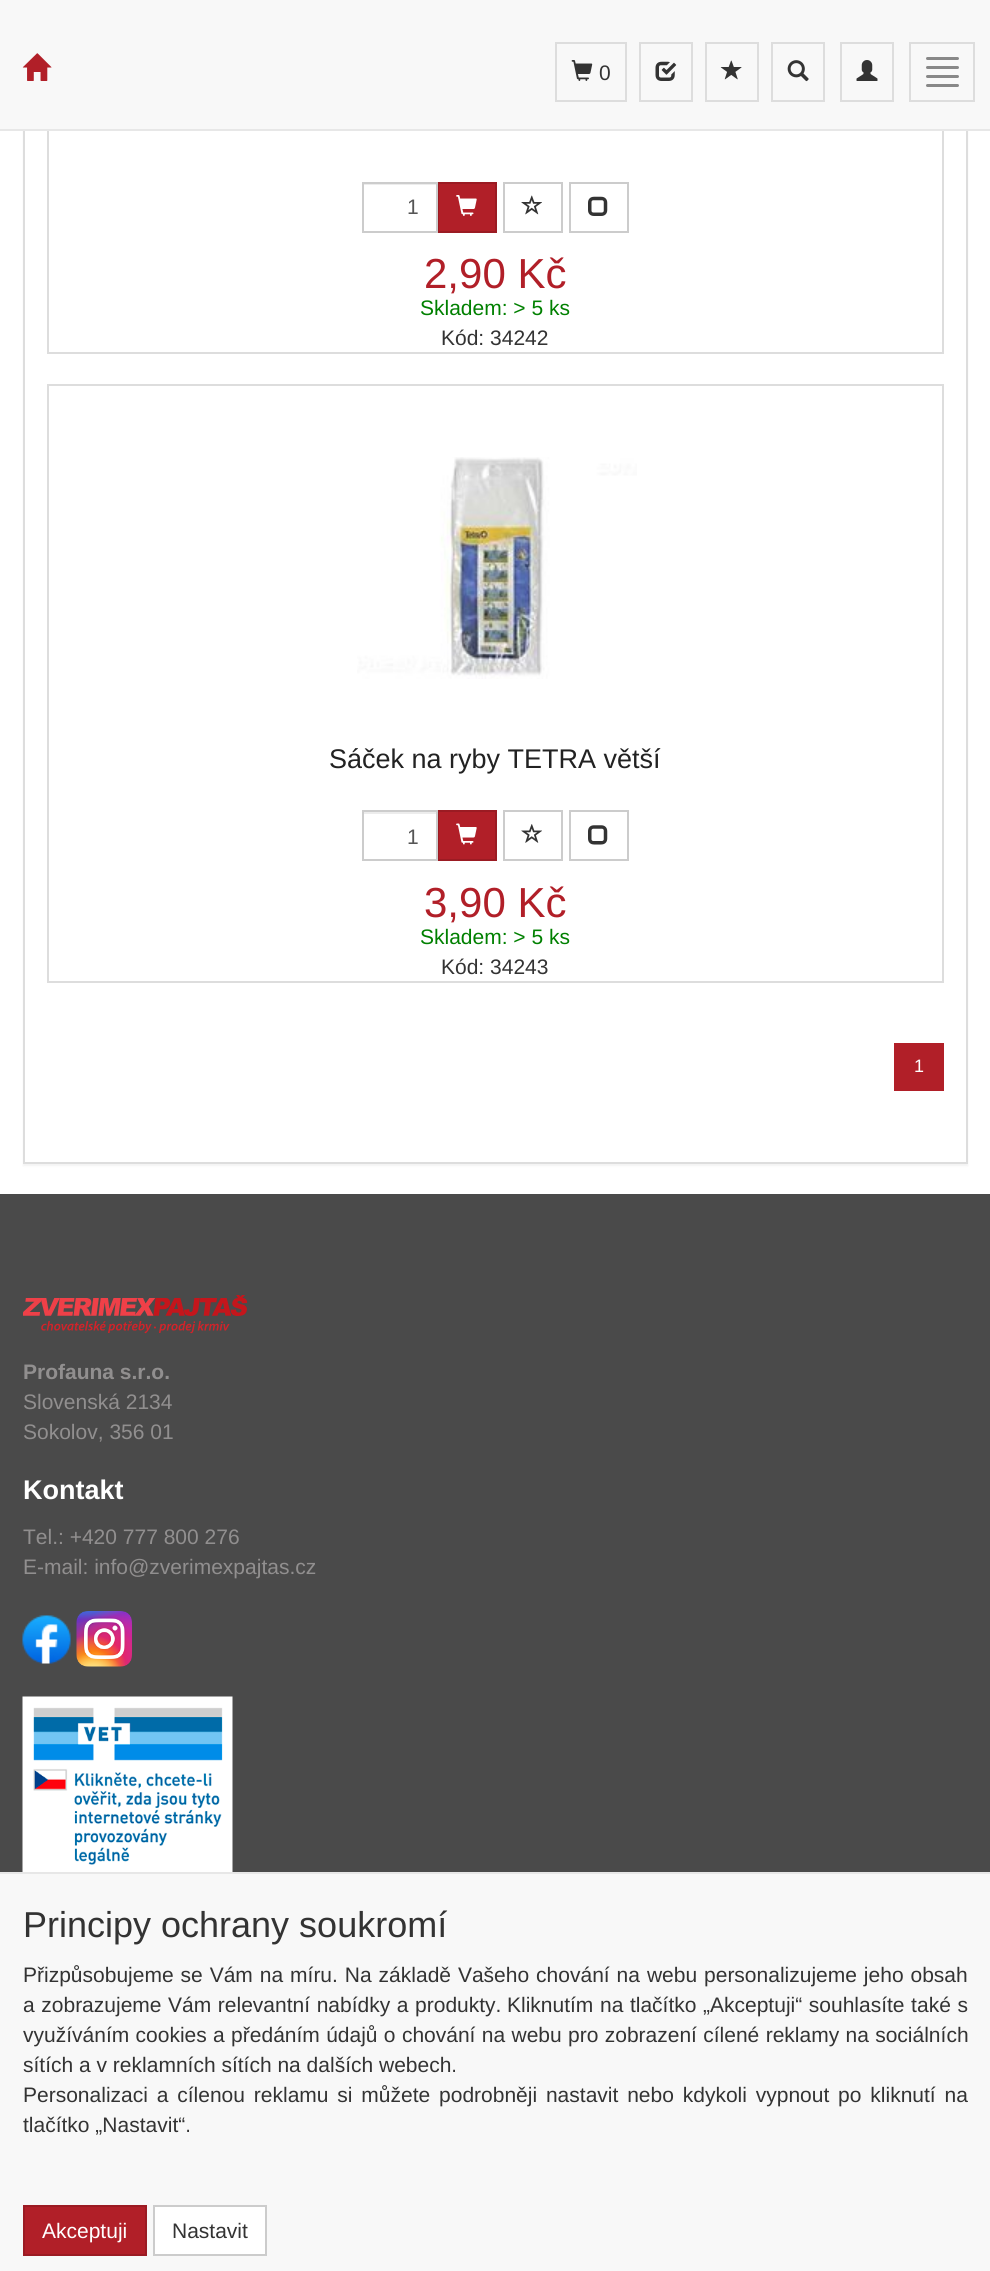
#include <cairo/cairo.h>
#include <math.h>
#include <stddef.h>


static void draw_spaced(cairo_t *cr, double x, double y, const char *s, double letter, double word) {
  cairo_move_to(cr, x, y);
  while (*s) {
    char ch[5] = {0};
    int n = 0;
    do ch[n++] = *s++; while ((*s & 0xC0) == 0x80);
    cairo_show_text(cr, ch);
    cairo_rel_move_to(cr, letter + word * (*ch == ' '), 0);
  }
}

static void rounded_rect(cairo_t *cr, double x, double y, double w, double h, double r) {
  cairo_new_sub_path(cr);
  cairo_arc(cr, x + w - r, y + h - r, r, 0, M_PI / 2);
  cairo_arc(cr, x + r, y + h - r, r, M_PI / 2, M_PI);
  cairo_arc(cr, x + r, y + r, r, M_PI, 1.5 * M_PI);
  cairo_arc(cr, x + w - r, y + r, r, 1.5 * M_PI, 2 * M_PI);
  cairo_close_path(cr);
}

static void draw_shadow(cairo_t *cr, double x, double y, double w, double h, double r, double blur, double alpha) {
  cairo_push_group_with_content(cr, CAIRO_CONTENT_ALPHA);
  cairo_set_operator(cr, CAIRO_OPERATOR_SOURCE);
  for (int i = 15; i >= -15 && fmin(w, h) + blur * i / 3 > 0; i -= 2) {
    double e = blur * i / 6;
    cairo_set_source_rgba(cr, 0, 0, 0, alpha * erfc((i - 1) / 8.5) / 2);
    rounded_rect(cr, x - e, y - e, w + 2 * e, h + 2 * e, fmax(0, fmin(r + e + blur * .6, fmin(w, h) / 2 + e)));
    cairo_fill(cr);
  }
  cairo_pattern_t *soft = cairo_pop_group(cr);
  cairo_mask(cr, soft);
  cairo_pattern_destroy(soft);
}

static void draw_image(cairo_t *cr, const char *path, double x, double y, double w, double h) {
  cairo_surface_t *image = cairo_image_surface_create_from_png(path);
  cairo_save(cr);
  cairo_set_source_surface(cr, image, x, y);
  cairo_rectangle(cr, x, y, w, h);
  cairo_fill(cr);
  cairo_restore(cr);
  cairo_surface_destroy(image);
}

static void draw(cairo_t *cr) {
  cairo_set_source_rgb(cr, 1, 1, 1);
  cairo_paint(cr);
  cairo_set_source_rgb(cr, 0, 0, 0);
  draw_shadow(cr, 23, -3, 945, 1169, 0, 1, 0.05);
  cairo_set_source_rgb(cr, 1, 1, 1);
  cairo_rectangle(cr, 25, 131, 941, 1031);
  cairo_fill(cr);
  cairo_rectangle(cr, 24, -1, 943, 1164);
  cairo_set_source_rgb(cr, 221 / 255.0, 221 / 255.0, 221 / 255.0);
  cairo_stroke(cr);
  cairo_rectangle(cr, 48, -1, 895, 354);
  cairo_stroke(cr);
  cairo_set_source_rgb(cr, 248 / 255.0, 248 / 255.0, 248 / 255.0);
  cairo_rectangle(cr, 0, 0, 990, 129);
  cairo_fill(cr);
  cairo_set_source_rgb(cr, 231 / 255.0, 231 / 255.0, 231 / 255.0);
  cairo_rectangle(cr, 0, 129, 990, 2);
  cairo_fill(cr);
  draw_image(cr, "images/1.png", 22, 53, 30, 28);
  cairo_rectangle(cr, 556, 43, 70, 58);
  cairo_set_source_rgb(cr, 221 / 255.0, 221 / 255.0, 221 / 255.0);
  cairo_stroke(cr);
  draw_image(cr, "images/2.png", 571, 60, 22, 21);
  cairo_rectangle(cr, 640, 43, 52, 58);
  cairo_stroke(cr);
  draw_image(cr, "images/3.png", 655, 61, 22, 20);
  cairo_rectangle(cr, 706, 43, 52, 58);
  cairo_stroke(cr);
  draw_image(cr, "images/4.png", 720, 60, 22, 20);
  cairo_rectangle(cr, 772, 43, 52, 58);
  cairo_stroke(cr);
  draw_image(cr, "images/5.png", 787, 60, 22, 22);
  cairo_rectangle(cr, 841, 43, 52, 58);
  cairo_stroke(cr);
  draw_image(cr, "images/6.png", 856, 60, 22, 21);
  cairo_rectangle(cr, 910, 43, 64, 58);
  cairo_stroke(cr);
  cairo_set_source_rgb(cr, 136 / 255.0, 136 / 255.0, 136 / 255.0);
  rounded_rect(cr, 926, 57, 33, 3, 1.5);
  cairo_fill(cr);
  rounded_rect(cr, 926, 66, 33, 3, 1.5);
  cairo_fill(cr);
  rounded_rect(cr, 926, 75, 33, 3, 1.5);
  cairo_fill(cr);
  rounded_rect(cr, 926, 84, 33, 3, 1.5);
  cairo_fill(cr);
  cairo_set_source_rgb(cr, 236 / 255.0, 236 / 255.0, 236 / 255.0);
  cairo_rectangle(cr, 363, 184, 74, 1);
  cairo_fill(cr);
  cairo_set_source_rgb(cr, 177 / 255.0, 31 / 255.0, 40 / 255.0);
  cairo_rectangle(cr, 438, 183, 58, 49);
  cairo_fill_preserve(cr);
  cairo_set_source_rgb(cr, 155 / 255.0, 27 / 255.0, 35 / 255.0);
  cairo_stroke(cr);
  cairo_rectangle(cr, 363, 183, 74, 49);
  cairo_set_source_rgb(cr, 204 / 255.0, 204 / 255.0, 204 / 255.0);
  cairo_stroke(cr);
  draw_image(cr, "images/7.png", 456, 195, 21, 21);
  cairo_rectangle(cr, 504, 183, 58, 49);
  cairo_stroke(cr);
  draw_image(cr, "images/8.png", 521, 195, 21, 20);
  cairo_rectangle(cr, 570, 183, 58, 49);
  cairo_stroke(cr);
  draw_image(cr, "images/9.png", 588, 196, 20, 20);
  cairo_rectangle(cr, 48, 385, 895, 597);
  cairo_set_source_rgb(cr, 221 / 255.0, 221 / 255.0, 221 / 255.0);
  cairo_stroke(cr);
  draw_image(cr, "images/10.png", 357, 457, 280, 222);
  cairo_set_source_rgb(cr, 236 / 255.0, 236 / 255.0, 236 / 255.0);
  cairo_rectangle(cr, 363, 812, 74, 2);
  cairo_fill(cr);
  cairo_set_source_rgb(cr, 177 / 255.0, 31 / 255.0, 40 / 255.0);
  cairo_rectangle(cr, 438, 811, 58, 49);
  cairo_fill_preserve(cr);
  cairo_set_source_rgb(cr, 155 / 255.0, 27 / 255.0, 35 / 255.0);
  cairo_stroke(cr);
  cairo_rectangle(cr, 363, 811, 74, 49);
  cairo_set_source_rgb(cr, 204 / 255.0, 204 / 255.0, 204 / 255.0);
  cairo_stroke(cr);
  draw_image(cr, "images/11.png", 456, 823, 21, 22);
  cairo_rectangle(cr, 504, 811, 58, 49);
  cairo_stroke(cr);
  draw_image(cr, "images/12.png", 521, 824, 21, 19);
  cairo_rectangle(cr, 570, 811, 58, 49);
  cairo_stroke(cr);
  draw_image(cr, "images/13.png", 588, 825, 20, 20);
  cairo_set_source_rgb(cr, 177 / 255.0, 31 / 255.0, 40 / 255.0);
  cairo_rectangle(cr, 894, 1043, 50, 48);
  cairo_fill(cr);
  cairo_set_source_rgb(cr, 74 / 255.0, 74 / 255.0, 74 / 255.0);
  cairo_rectangle(cr, 0, 1194, 990, 678);
  cairo_fill(cr);
  draw_image(cr, "images/14.png", 23, 1295, 225, 39);
  draw_image(cr, "images/15.png", 22, 1615, 49, 49);
  draw_image(cr, "images/16.png", 76, 1611, 56, 56);
  draw_image(cr, "images/17.png", 22, 1696, 211, 176);
  cairo_set_source_rgb(cr, 248 / 255.0, 248 / 255.0, 248 / 255.0);
  cairo_rectangle(cr, 0, 1874, 990, 397);
  cairo_fill(cr);
  cairo_set_source_rgb(cr, 231 / 255.0, 231 / 255.0, 231 / 255.0);
  cairo_rectangle(cr, 0, 1872, 990, 2);
  cairo_fill(cr);
  cairo_set_source_rgb(cr, 177 / 255.0, 31 / 255.0, 40 / 255.0);
  cairo_rectangle(cr, 24, 2206, 122, 49);
  cairo_fill_preserve(cr);
  cairo_set_source_rgb(cr, 155 / 255.0, 27 / 255.0, 35 / 255.0);
  cairo_stroke(cr);
  cairo_set_source_rgb(cr, 1, 1, 1);
  cairo_rectangle(cr, 154, 2206, 112, 49);
  cairo_fill_preserve(cr);
  cairo_set_source_rgb(cr, 204 / 255.0, 204 / 255.0, 204 / 255.0);
  cairo_stroke(cr);
  cairo_select_font_face(cr, "Liberation Sans", CAIRO_FONT_SLANT_NORMAL, CAIRO_FONT_WEIGHT_NORMAL);
  cairo_set_font_size(cr, 21);
  cairo_set_source_rgb(cr, 51 / 255.0, 51 / 255.0, 51 / 255.0);
  cairo_move_to(cr, 599, 80);
  cairo_show_text(cr, "0");
  cairo_set_source_rgb(cr, 85 / 255.0, 85 / 255.0, 85 / 255.0);
  cairo_move_to(cr, 407, 214);
  cairo_show_text(cr, "1");
  cairo_set_font_size(cr, 42);
  cairo_set_source_rgb(cr, 177 / 255.0, 31 / 255.0, 40 / 255.0);
  cairo_move_to(cr, 424, 288);
  cairo_show_text(cr, "2,90 Kč");
  cairo_set_font_size(cr, 21);
  cairo_set_source_rgb(cr, 0, 128 / 255.0, 0);
  cairo_move_to(cr, 420, 315);
  cairo_show_text(cr, "Skladem: > 5 ks");
  cairo_set_source_rgb(cr, 51 / 255.0, 51 / 255.0, 51 / 255.0);
  cairo_move_to(cr, 441, 345);
  cairo_show_text(cr, "Kód: 34242");
  cairo_set_font_size(cr, 27);
  cairo_set_source_rgb(cr, 34 / 255.0, 34 / 255.0, 34 / 255.0);
  cairo_move_to(cr, 329, 768);
  cairo_show_text(cr, "Sáček na ryby TETRA větší");
  cairo_set_font_size(cr, 21);
  cairo_set_source_rgb(cr, 85 / 255.0, 85 / 255.0, 85 / 255.0);
  cairo_move_to(cr, 407, 844);
  cairo_show_text(cr, "1");
  cairo_set_font_size(cr, 42);
  cairo_set_source_rgb(cr, 177 / 255.0, 31 / 255.0, 40 / 255.0);
  cairo_move_to(cr, 424, 917);
  cairo_show_text(cr, "3,90 Kč");
  cairo_set_font_size(cr, 21);
  cairo_set_source_rgb(cr, 0, 128 / 255.0, 0);
  cairo_move_to(cr, 420, 944);
  cairo_show_text(cr, "Skladem: > 5 ks");
  cairo_set_source_rgb(cr, 51 / 255.0, 51 / 255.0, 51 / 255.0);
  cairo_move_to(cr, 441, 974);
  cairo_show_text(cr, "Kód: 34243");
  cairo_set_font_size(cr, 18);
  cairo_set_source_rgb(cr, 1, 1, 1);
  cairo_move_to(cr, 914, 1072);
  cairo_show_text(cr, "1");
  cairo_select_font_face(cr, "Liberation Sans", CAIRO_FONT_SLANT_NORMAL, CAIRO_FONT_WEIGHT_BOLD);
  cairo_set_font_size(cr, 21);
  cairo_set_source_rgb(cr, 145 / 255.0, 143 / 255.0, 143 / 255.0);
  cairo_move_to(cr, 23, 1379);
  cairo_show_text(cr, "Profauna s.r.o.");
  cairo_select_font_face(cr, "Liberation Sans", CAIRO_FONT_SLANT_NORMAL, CAIRO_FONT_WEIGHT_NORMAL);
  cairo_move_to(cr, 23, 1409);
  cairo_show_text(cr, "Slovenská 2134");
  cairo_move_to(cr, 23, 1439);
  cairo_show_text(cr, "Sokolov, 356 01");
  cairo_select_font_face(cr, "Liberation Sans", CAIRO_FONT_SLANT_NORMAL, CAIRO_FONT_WEIGHT_BOLD);
  cairo_set_font_size(cr, 27);
  cairo_set_source_rgb(cr, 1, 1, 1);
  cairo_move_to(cr, 23, 1499);
  cairo_show_text(cr, "Kontakt");
  cairo_select_font_face(cr, "Liberation Sans", CAIRO_FONT_SLANT_NORMAL, CAIRO_FONT_WEIGHT_NORMAL);
  cairo_set_font_size(cr, 21);
  cairo_set_source_rgb(cr, 145 / 255.0, 143 / 255.0, 143 / 255.0);
  cairo_move_to(cr, 23, 1544);
  cairo_show_text(cr, "Tel.: +420 777 800 276");
  cairo_move_to(cr, 23, 1574);
  cairo_show_text(cr, "E-mail: info@zverimexpajtas.cz");
  cairo_set_font_size(cr, 36);
  cairo_set_source_rgb(cr, 51 / 255.0, 51 / 255.0, 51 / 255.0);
  cairo_move_to(cr, 23, 1937);
  cairo_show_text(cr, "Principy ochrany soukromí");
  cairo_set_font_size(cr, 21);
  draw_spaced(cr, 23, 1982, "Přizpůsobujeme se Vám na míru. Na základě Vašeho chování na webu personalizujeme jeho obsah", 0, 1.1);
  draw_spaced(cr, 23, 2012, "a zobrazujeme Vám relevantní nabídky a produkty.", 0, 0.75);
  draw_spaced(cr, 507, 2012, "Kliknutím na tlačítko „Akceptuji“ souhlasíte také s", 0, 0.75);
  draw_spaced(cr, 23, 2042, "využíváním cookies a předáním údajů o chování na webu pro zobrazení cílené reklamy na sociálních", 0, 0.5);
  cairo_move_to(cr, 23, 2072);
  cairo_show_text(cr, "sítích a v reklamních sítích na dalších webech.");
  draw_spaced(cr, 23, 2102, "Personalizaci a cílenou reklamu si můžete podrobněji nastavit nebo kdykoli vypnout po kliknutí na", 0, 3);
  cairo_move_to(cr, 23, 2132);
  cairo_show_text(cr, "tlačítko „Nastavit“.");
  cairo_set_source_rgb(cr, 1, 1, 1);
  cairo_move_to(cr, 42, 2238);
  cairo_show_text(cr, "Akceptuji");
  cairo_set_source_rgb(cr, 51 / 255.0, 51 / 255.0, 51 / 255.0);
  cairo_move_to(cr, 172, 2238);
  cairo_show_text(cr, "Nastavit");
}

int main(void) {
  cairo_surface_t *surface = cairo_image_surface_create(CAIRO_FORMAT_RGB24, 990, 2271);
  cairo_t *cr = cairo_create(surface);
  cairo_font_options_t *options = cairo_font_options_create();
  cairo_font_options_set_hint_metrics(options, CAIRO_HINT_METRICS_OFF);
  cairo_font_options_set_hint_style(options, CAIRO_HINT_STYLE_NONE);
  cairo_set_font_options(cr, options);
  cairo_set_miter_limit(cr, 4);
  draw(cr);
  cairo_surface_write_to_png(surface, "out.png");
  cairo_font_options_destroy(options);
  cairo_destroy(cr);
  cairo_surface_destroy(surface);
  return 0;
}
